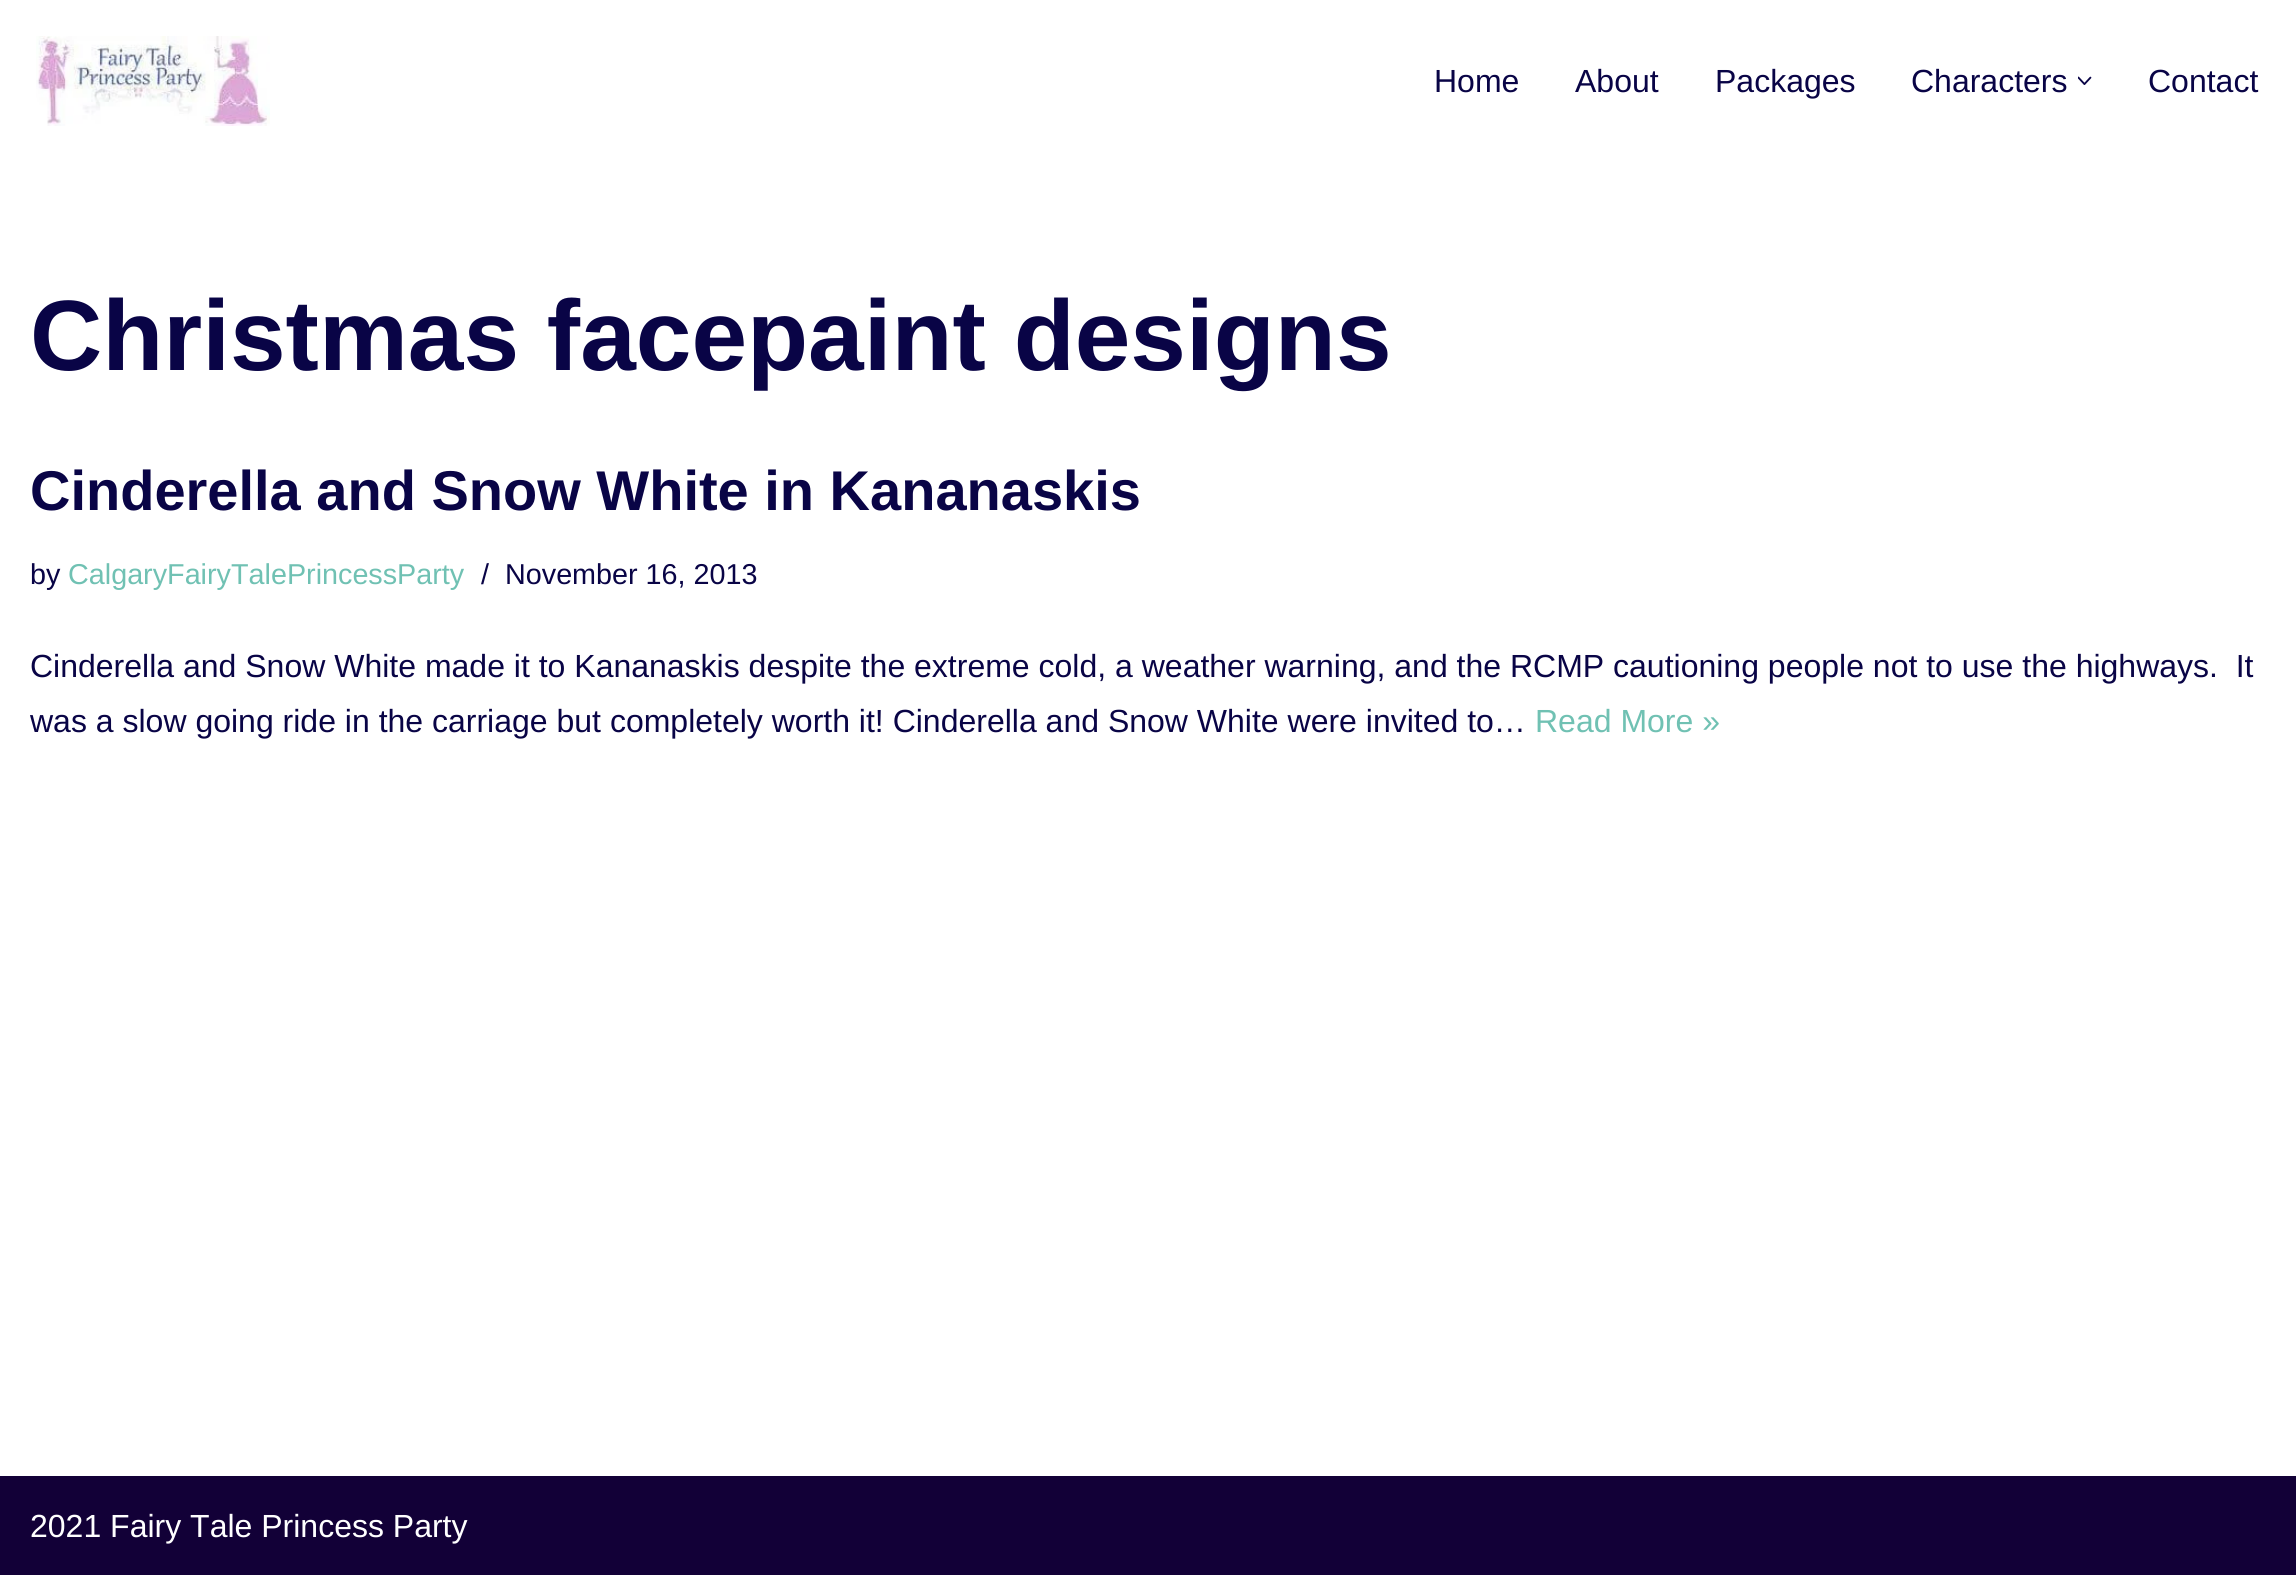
#include <cairo/cairo.h>
#include <math.h>
#include <stddef.h>


static void draw_image(cairo_t *cr, const char *path, double x, double y, double w, double h) {
  cairo_surface_t *image = cairo_image_surface_create_from_png(path);
  cairo_save(cr);
  cairo_set_source_surface(cr, image, x, y);
  cairo_rectangle(cr, x, y, w, h);
  cairo_fill(cr);
  cairo_restore(cr);
  cairo_surface_destroy(image);
}

static void draw(cairo_t *cr) {
  cairo_set_source_rgb(cr, 1, 1, 1);
  cairo_paint(cr);
  draw_image(cr, "images/1.png", 36, 36, 234, 90);
  draw_image(cr, "images/2.png", 2078, 76, 14, 9);
  cairo_set_source_rgb(cr, 18 / 255.0, 0, 55 / 255.0);
  cairo_rectangle(cr, 0, 1476, 2296, 99);
  cairo_fill(cr);
  cairo_select_font_face(cr, "Liberation Sans", CAIRO_FONT_SLANT_NORMAL, CAIRO_FONT_WEIGHT_NORMAL);
  cairo_set_font_size(cr, 32);
  cairo_set_source_rgb(cr, 9 / 255.0, 4 / 255.0, 70 / 255.0);
  cairo_move_to(cr, 1434, 92);
  cairo_show_text(cr, "Home");
  cairo_move_to(cr, 1575, 92);
  cairo_show_text(cr, "About");
  cairo_move_to(cr, 1715, 92);
  cairo_show_text(cr, "Packages");
  cairo_move_to(cr, 1911, 92);
  cairo_show_text(cr, "Characters");
  cairo_move_to(cr, 2148, 92);
  cairo_show_text(cr, "Contact");
  cairo_select_font_face(cr, "Liberation Sans", CAIRO_FONT_SLANT_NORMAL, CAIRO_FONT_WEIGHT_BOLD);
  cairo_set_font_size(cr, 100);
  cairo_move_to(cr, 30, 370);
  cairo_show_text(cr, "Christmas facepaint designs");
  cairo_set_font_size(cr, 56);
  cairo_move_to(cr, 30, 510);
  cairo_show_text(cr, "Cinderella and Snow White in Kananaskis");
  cairo_select_font_face(cr, "Liberation Sans", CAIRO_FONT_SLANT_NORMAL, CAIRO_FONT_WEIGHT_NORMAL);
  cairo_set_font_size(cr, 28.75);
  cairo_move_to(cr, 30, 584);
  cairo_show_text(cr, "by");
  cairo_set_source_rgb(cr, 112 / 255.0, 193 / 255.0, 179 / 255.0);
  cairo_move_to(cr, 68, 584);
  cairo_show_text(cr, "CalgaryFairyTalePrincessParty");
  cairo_set_source_rgb(cr, 9 / 255.0, 4 / 255.0, 70 / 255.0);
  cairo_move_to(cr, 481, 584);
  cairo_show_text(cr, "/");
  cairo_move_to(cr, 505, 584);
  cairo_show_text(cr, "November 16, 2013");
  cairo_set_font_size(cr, 32);
  cairo_move_to(cr, 30, 677);
  cairo_show_text(cr, "Cinderella and Snow White made it to Kananaskis despite the extreme cold, a weather warning, and the RCMP cautioning people not to use the highways.  It");
  cairo_move_to(cr, 30, 732);
  cairo_show_text(cr, "was a slow going ride in the carriage but completely worth it! Cinderella and Snow White were invited to…");
  cairo_set_source_rgb(cr, 112 / 255.0, 193 / 255.0, 179 / 255.0);
  cairo_move_to(cr, 1535, 732);
  cairo_show_text(cr, "Read More »");
  cairo_set_source_rgb(cr, 1, 1, 1);
  cairo_move_to(cr, 30, 1537);
  cairo_show_text(cr, "2021 Fairy Tale Princess Party");
}

int main(void) {
  cairo_surface_t *surface = cairo_image_surface_create(CAIRO_FORMAT_RGB24, 2296, 1575);
  cairo_t *cr = cairo_create(surface);
  cairo_font_options_t *options = cairo_font_options_create();
  cairo_font_options_set_hint_metrics(options, CAIRO_HINT_METRICS_OFF);
  cairo_font_options_set_hint_style(options, CAIRO_HINT_STYLE_NONE);
  cairo_set_font_options(cr, options);
  cairo_set_miter_limit(cr, 4);
  draw(cr);
  cairo_surface_write_to_png(surface, "out.png");
  cairo_font_options_destroy(options);
  cairo_destroy(cr);
  cairo_surface_destroy(surface);
  return 0;
}
